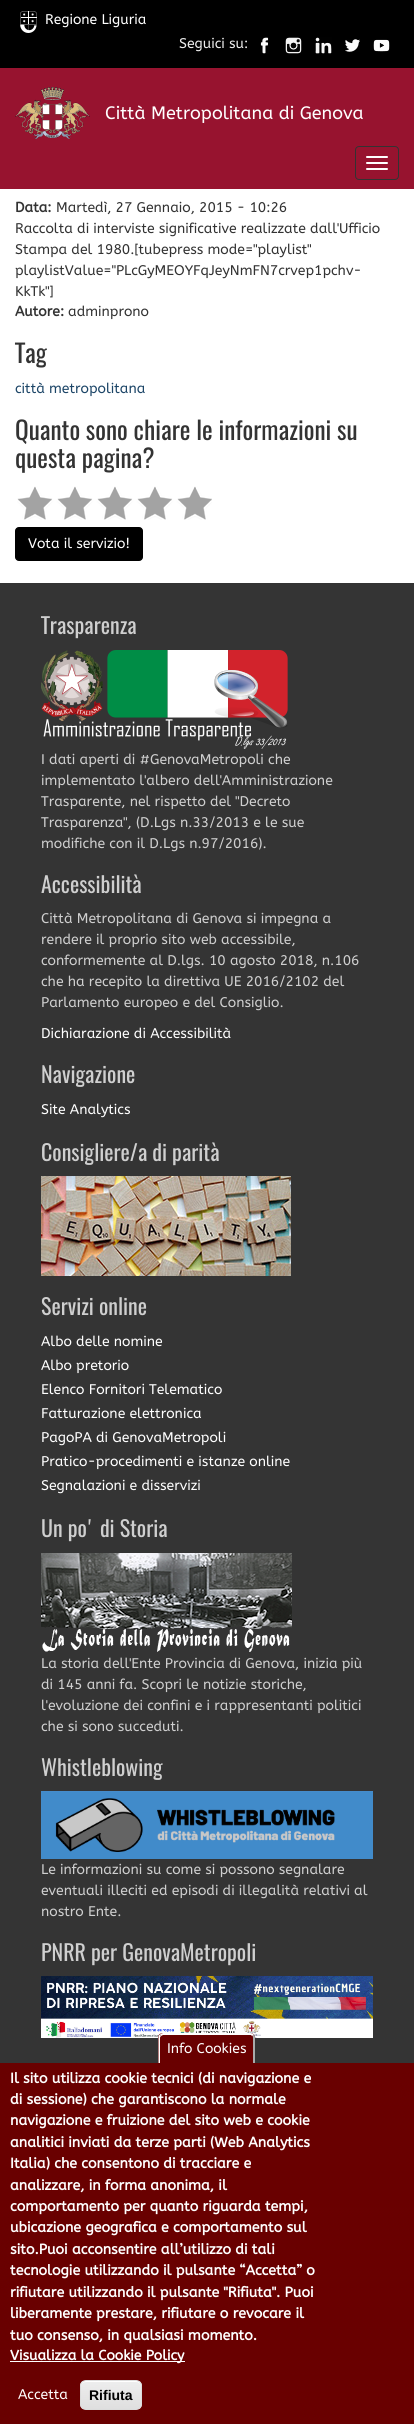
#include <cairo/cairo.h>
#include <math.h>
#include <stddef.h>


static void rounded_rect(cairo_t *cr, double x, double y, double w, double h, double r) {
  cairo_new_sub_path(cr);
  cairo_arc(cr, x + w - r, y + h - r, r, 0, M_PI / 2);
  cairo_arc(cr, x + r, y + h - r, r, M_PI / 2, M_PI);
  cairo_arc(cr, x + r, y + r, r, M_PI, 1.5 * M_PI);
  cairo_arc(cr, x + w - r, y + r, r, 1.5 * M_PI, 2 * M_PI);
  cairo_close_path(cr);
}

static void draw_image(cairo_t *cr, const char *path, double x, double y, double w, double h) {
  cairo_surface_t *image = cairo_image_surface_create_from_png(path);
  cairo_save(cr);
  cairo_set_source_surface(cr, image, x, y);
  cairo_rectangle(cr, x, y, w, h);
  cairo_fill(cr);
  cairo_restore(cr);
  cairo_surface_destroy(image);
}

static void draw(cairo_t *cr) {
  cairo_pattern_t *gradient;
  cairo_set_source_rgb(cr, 1, 1, 1);
  cairo_paint(cr);
  cairo_set_source_rgb(cr, 151 / 255.0, 19 / 255.0, 47 / 255.0);
  cairo_rectangle(cr, 0, 68, 414, 121);
  cairo_fill(cr);
  cairo_set_source_rgb(cr, 0, 0, 0);
  cairo_rectangle(cr, 0, 0, 414, 68);
  cairo_fill(cr);
  draw_image(cr, "images/1.png", 20, 11, 17, 22);
  draw_image(cr, "images/2.png", 260, 37, 9, 17);
  draw_image(cr, "images/3.png", 285, 37, 17, 17);
  draw_image(cr, "images/4.png", 315, 37, 17, 17);
  draw_image(cr, "images/5.png", 345, 39, 15, 13);
  draw_image(cr, "images/6.png", 373, 39, 17, 13);
  draw_image(cr, "images/7.png", 15, 87, 75, 52);
  rounded_rect(cr, 355.5, 146.5, 43, 33, 3.5);
  cairo_set_source_rgb(cr, 51 / 255.0, 51 / 255.0, 51 / 255.0);
  cairo_set_line_width(cr, 1);
  cairo_stroke(cr);
  cairo_set_source_rgb(cr, 1, 1, 1);
  rounded_rect(cr, 366, 156, 22, 2, 1);
  cairo_fill(cr);
  rounded_rect(cr, 366, 162, 22, 2, 1);
  cairo_fill(cr);
  rounded_rect(cr, 366, 168, 22, 2, 1);
  cairo_fill(cr);
  draw_image(cr, "images/8.png", 17, 486, 195, 34);
  cairo_set_source_rgb(cr, 0, 0, 0);
  rounded_rect(cr, 15.5, 527.5, 127, 33, 3.5);
  cairo_fill_preserve(cr);
  cairo_stroke(cr);
  cairo_set_source_rgb(cr, 52 / 255.0, 52 / 255.0, 52 / 255.0);
  cairo_rectangle(cr, 0, 583, 414, 1480);
  cairo_fill(cr);
  draw_image(cr, "images/9.png", 41, 650, 247, 99);
  draw_image(cr, "images/10.png", 41, 1176, 250, 100);
  draw_image(cr, "images/11.png", 41, 1553, 251, 99);
  draw_image(cr, "images/12.png", 41, 1791, 332, 68);
  draw_image(cr, "images/13.png", 41, 1976, 332, 62);
  cairo_set_source_rgb(cr, 105 / 255.0, 0, 0);
  cairo_rectangle(cr, 0, 2063, 414, 361);
  cairo_fill(cr);
  cairo_new_path(cr);
  cairo_move_to(cr, 163, 2033);
  cairo_line_to(cr, 250, 2033);
  cairo_curve_to(cr, 253, 2033, 255, 2035, 255, 2038);
  cairo_line_to(cr, 255, 2063);
  cairo_line_to(cr, 158, 2063);
  cairo_line_to(cr, 158, 2038);
  cairo_curve_to(cr, 158, 2035, 160, 2033, 163, 2033);
  cairo_close_path(cr);
  cairo_fill(cr);
  cairo_set_source_rgb(cr, 1, 1, 1);
  cairo_new_path(cr);
  cairo_move_to(cr, 163, 2033);
  cairo_line_to(cr, 160, 2034);
  cairo_line_to(cr, 161, 2036);
  cairo_line_to(cr, 163, 2035);
  cairo_line_to(cr, 251, 2035);
  cairo_line_to(cr, 252, 2036);
  cairo_line_to(cr, 254, 2035);
  cairo_curve_to(cr, 253, 2034, 252, 2033, 250, 2033);
  cairo_close_path(cr);
  cairo_fill(cr);
  cairo_set_source_rgb(cr, 170 / 255.0, 170 / 255.0, 170 / 255.0);
  cairo_new_path(cr);
  cairo_move_to(cr, 253, 2063);
  cairo_line_to(cr, 255, 2063);
  cairo_line_to(cr, 255, 2038);
  cairo_curve_to(cr, 255, 2036.5, 254.5, 2035.5, 254, 2034.5);
  cairo_line_to(cr, 252.5, 2036);
  cairo_curve_to(cr, 253, 2036.5, 253, 2037, 253, 2038);
  cairo_close_path(cr);
  cairo_fill(cr);
  cairo_set_source_rgb(cr, 1, 1, 1);
  cairo_new_path(cr);
  cairo_move_to(cr, 158.5, 2063);
  cairo_line_to(cr, 158.5, 2036.5);
  cairo_line_to(cr, 159.5, 2034.5);
  cairo_line_to(cr, 161, 2036);
  cairo_curve_to(cr, 160.5, 2036.5, 160, 2037, 160, 2038);
  cairo_line_to(cr, 160, 2063);
  cairo_close_path(cr);
  cairo_fill(cr);
  cairo_rectangle(cr, 10, 2361, 175, 1);
  cairo_fill(cr);
  cairo_save(cr);
  rounded_rect(cr, 80, 2380, 62, 30, 6);
  cairo_clip(cr);
  gradient = cairo_pattern_create_linear(111, 2381, 111, 2409);
  cairo_pattern_add_color_stop_rgba(gradient, 0.05, 237 / 255.0, 237 / 255.0, 237 / 255.0, 1);
  cairo_pattern_add_color_stop_rgba(gradient, 1, 223 / 255.0, 223 / 255.0, 223 / 255.0, 1);
  cairo_set_source(cr, gradient);
  cairo_pattern_destroy(gradient);
  cairo_rectangle(cr, 80, 2381, 62, 28);
  cairo_fill(cr);
  cairo_restore(cr);
  cairo_new_path(cr);
  cairo_move_to(cr, 86, 2382);
  cairo_line_to(cr, 136, 2382);
  cairo_curve_to(cr, 139, 2382, 141, 2384, 141, 2387);
  cairo_curve_to(cr, 141, 2379, 134, 2381, 128, 2381);
  cairo_line_to(cr, 94, 2381);
  cairo_curve_to(cr, 88, 2381, 81, 2379, 81, 2387);
  cairo_curve_to(cr, 81, 2384, 83, 2382, 86, 2382);
  cairo_close_path(cr);
  cairo_fill(cr);
  rounded_rect(cr, 80.5, 2380.5, 61, 29, 5.5);
  cairo_set_source_rgb(cr, 220 / 255.0, 220 / 255.0, 220 / 255.0);
  cairo_stroke(cr);
  cairo_select_font_face(cr, "abeezee", CAIRO_FONT_SLANT_NORMAL, CAIRO_FONT_WEIGHT_NORMAL);
  cairo_set_font_size(cr, 14);
  cairo_set_source_rgb(cr, 1, 1, 1);
  cairo_move_to(cr, 45, 24);
  cairo_show_text(cr, "Regione Liguria");
  cairo_set_source_rgb(cr, 238 / 255.0, 238 / 255.0, 238 / 255.0);
  cairo_move_to(cr, 179, 48);
  cairo_show_text(cr, "Seguici su:");
  cairo_set_font_size(cr, 18);
  cairo_set_source_rgb(cr, 1, 1, 1);
  cairo_move_to(cr, 105, 119);
  cairo_show_text(cr, "Città Metropolitana di Genova");
  cairo_select_font_face(cr, "abeezee", CAIRO_FONT_SLANT_NORMAL, CAIRO_FONT_WEIGHT_BOLD);
  cairo_set_font_size(cr, 14);
  cairo_set_source_rgb(cr, 51 / 255.0, 51 / 255.0, 51 / 255.0);
  cairo_move_to(cr, 15, 212);
  cairo_show_text(cr, "Data:");
  cairo_select_font_face(cr, "abeezee", CAIRO_FONT_SLANT_NORMAL, CAIRO_FONT_WEIGHT_NORMAL);
  cairo_move_to(cr, 56, 212);
  cairo_show_text(cr, "Martedì, 27 Gennaio, 2015 - 10:26");
  cairo_move_to(cr, 15, 233);
  cairo_show_text(cr, "Raccolta di interviste significative realizzate dall'Ufficio");
  cairo_move_to(cr, 15, 254);
  cairo_show_text(cr, "Stampa del 1980.[tubepress mode=\"playlist\"");
  cairo_move_to(cr, 15, 275);
  cairo_show_text(cr, "playlistValue=\"PLcGyMEOYFqJeyNmFN7crvep1pchv-");
  cairo_move_to(cr, 15, 296);
  cairo_show_text(cr, "KkTk\"]");
  cairo_select_font_face(cr, "abeezee", CAIRO_FONT_SLANT_NORMAL, CAIRO_FONT_WEIGHT_BOLD);
  cairo_move_to(cr, 15, 316);
  cairo_show_text(cr, "Autore:");
  cairo_select_font_face(cr, "abeezee", CAIRO_FONT_SLANT_NORMAL, CAIRO_FONT_WEIGHT_NORMAL);
  cairo_move_to(cr, 68, 316);
  cairo_show_text(cr, "adminprono");
  cairo_select_font_face(cr, "Oswald", CAIRO_FONT_SLANT_NORMAL, CAIRO_FONT_WEIGHT_NORMAL);
  cairo_set_font_size(cr, 25.25);
  cairo_move_to(cr, 15, 363);
  cairo_show_text(cr, "Tag");
  cairo_select_font_face(cr, "abeezee", CAIRO_FONT_SLANT_NORMAL, CAIRO_FONT_WEIGHT_NORMAL);
  cairo_set_font_size(cr, 14);
  cairo_set_source_rgb(cr, 28 / 255.0, 69 / 255.0, 103 / 255.0);
  cairo_move_to(cr, 15, 393);
  cairo_show_text(cr, "città metropolitana");
  cairo_select_font_face(cr, "Oswald", CAIRO_FONT_SLANT_NORMAL, CAIRO_FONT_WEIGHT_NORMAL);
  cairo_set_font_size(cr, 25.25);
  cairo_set_source_rgb(cr, 51 / 255.0, 51 / 255.0, 51 / 255.0);
  cairo_move_to(cr, 15, 440);
  cairo_show_text(cr, "Quanto sono chiare le informazioni su");
  cairo_move_to(cr, 15, 468);
  cairo_show_text(cr, "questa pagina?");
  cairo_select_font_face(cr, "abeezee", CAIRO_FONT_SLANT_NORMAL, CAIRO_FONT_WEIGHT_NORMAL);
  cairo_set_font_size(cr, 14);
  cairo_set_source_rgb(cr, 1, 1, 1);
  cairo_move_to(cr, 28, 548);
  cairo_show_text(cr, "Vota il servizio!");
  cairo_select_font_face(cr, "Oswald", CAIRO_FONT_SLANT_NORMAL, CAIRO_FONT_WEIGHT_NORMAL);
  cairo_set_font_size(cr, 22);
  cairo_set_source_rgb(cr, 207 / 255.0, 207 / 255.0, 207 / 255.0);
  cairo_move_to(cr, 41, 634);
  cairo_show_text(cr, "Trasparenza");
  cairo_select_font_face(cr, "abeezee", CAIRO_FONT_SLANT_NORMAL, CAIRO_FONT_WEIGHT_NORMAL);
  cairo_set_font_size(cr, 14);
  cairo_move_to(cr, 41, 764);
  cairo_show_text(cr, "I dati aperti di #GenovaMetropoli che");
  cairo_move_to(cr, 41, 785);
  cairo_show_text(cr, "implementato l'albero dell'Amministrazione");
  cairo_move_to(cr, 41, 806);
  cairo_show_text(cr, "Trasparente, nel rispetto del \"Decreto");
  cairo_move_to(cr, 41, 827);
  cairo_show_text(cr, "Trasparenza\", (D.Lgs n.33/2013 e le sue");
  cairo_move_to(cr, 41, 848);
  cairo_show_text(cr, "modifiche con il D.Lgs n.97/2016).");
  cairo_select_font_face(cr, "Oswald", CAIRO_FONT_SLANT_NORMAL, CAIRO_FONT_WEIGHT_NORMAL);
  cairo_set_font_size(cr, 22);
  cairo_move_to(cr, 41, 893);
  cairo_show_text(cr, "Accessibilità");
  cairo_select_font_face(cr, "abeezee", CAIRO_FONT_SLANT_NORMAL, CAIRO_FONT_WEIGHT_NORMAL);
  cairo_set_font_size(cr, 14);
  cairo_move_to(cr, 41, 923);
  cairo_show_text(cr, "Città Metropolitana di Genova si impegna a");
  cairo_move_to(cr, 41, 944);
  cairo_show_text(cr, "rendere il proprio sito web accessibile,");
  cairo_move_to(cr, 41, 965);
  cairo_show_text(cr, "conformemente al D.lgs. 10 agosto 2018, n.106");
  cairo_move_to(cr, 41, 986);
  cairo_show_text(cr, "che ha recepito la direttiva UE 2016/2102 del");
  cairo_move_to(cr, 41, 1007);
  cairo_show_text(cr, "Parlamento europeo e del Consiglio.");
  cairo_set_source_rgb(cr, 1, 1, 1);
  cairo_move_to(cr, 41, 1038);
  cairo_show_text(cr, "Dichiarazione di Accessibilità");
  cairo_select_font_face(cr, "Oswald", CAIRO_FONT_SLANT_NORMAL, CAIRO_FONT_WEIGHT_NORMAL);
  cairo_set_font_size(cr, 22);
  cairo_set_source_rgb(cr, 207 / 255.0, 207 / 255.0, 207 / 255.0);
  cairo_move_to(cr, 41, 1083);
  cairo_show_text(cr, "Navigazione");
  cairo_select_font_face(cr, "abeezee", CAIRO_FONT_SLANT_NORMAL, CAIRO_FONT_WEIGHT_NORMAL);
  cairo_set_font_size(cr, 14);
  cairo_set_source_rgb(cr, 1, 1, 1);
  cairo_move_to(cr, 41, 1114);
  cairo_show_text(cr, "Site Analytics");
  cairo_select_font_face(cr, "Oswald", CAIRO_FONT_SLANT_NORMAL, CAIRO_FONT_WEIGHT_NORMAL);
  cairo_set_font_size(cr, 22);
  cairo_set_source_rgb(cr, 207 / 255.0, 207 / 255.0, 207 / 255.0);
  cairo_move_to(cr, 41, 1161);
  cairo_show_text(cr, "Consigliere/a di parità");
  cairo_move_to(cr, 41, 1315);
  cairo_show_text(cr, "Servizi online");
  cairo_select_font_face(cr, "abeezee", CAIRO_FONT_SLANT_NORMAL, CAIRO_FONT_WEIGHT_NORMAL);
  cairo_set_font_size(cr, 14);
  cairo_set_source_rgb(cr, 1, 1, 1);
  cairo_move_to(cr, 41, 1346);
  cairo_show_text(cr, "Albo delle nomine");
  cairo_move_to(cr, 41, 1370);
  cairo_show_text(cr, "Albo pretorio");
  cairo_move_to(cr, 41, 1394);
  cairo_show_text(cr, "Elenco Fornitori Telematico");
  cairo_move_to(cr, 41, 1418);
  cairo_show_text(cr, "Fatturazione elettronica");
  cairo_move_to(cr, 41, 1442);
  cairo_show_text(cr, "PagoPA di GenovaMetropoli");
  cairo_move_to(cr, 41, 1466);
  cairo_show_text(cr, "Pratico-procedimenti e istanze online");
  cairo_move_to(cr, 41, 1490);
  cairo_show_text(cr, "Segnalazioni e disservizi");
  cairo_select_font_face(cr, "Oswald", CAIRO_FONT_SLANT_NORMAL, CAIRO_FONT_WEIGHT_NORMAL);
  cairo_set_font_size(cr, 22);
  cairo_set_source_rgb(cr, 207 / 255.0, 207 / 255.0, 207 / 255.0);
  cairo_move_to(cr, 41, 1537);
  cairo_show_text(cr, "Un po' di Storia");
  cairo_select_font_face(cr, "abeezee", CAIRO_FONT_SLANT_NORMAL, CAIRO_FONT_WEIGHT_NORMAL);
  cairo_set_font_size(cr, 14);
  cairo_move_to(cr, 41, 1668);
  cairo_show_text(cr, "La storia dell'Ente Provincia di Genova, inizia più");
  cairo_move_to(cr, 41, 1689);
  cairo_show_text(cr, "di 145 anni fa. Scopri le notizie storiche,");
  cairo_move_to(cr, 41, 1710);
  cairo_show_text(cr, "l'evoluzione dei confini e i rappresentanti politici");
  cairo_move_to(cr, 41, 1731);
  cairo_show_text(cr, "che si sono succeduti.");
  cairo_select_font_face(cr, "Oswald", CAIRO_FONT_SLANT_NORMAL, CAIRO_FONT_WEIGHT_NORMAL);
  cairo_set_font_size(cr, 22);
  cairo_move_to(cr, 41, 1776);
  cairo_show_text(cr, "Whistleblowing");
  cairo_select_font_face(cr, "abeezee", CAIRO_FONT_SLANT_NORMAL, CAIRO_FONT_WEIGHT_NORMAL);
  cairo_set_font_size(cr, 14);
  cairo_move_to(cr, 41, 1874);
  cairo_show_text(cr, "Le informazioni su come si possono segnalare");
  cairo_move_to(cr, 41, 1895);
  cairo_show_text(cr, "eventuali illeciti ed episodi di illegalità relativi al");
  cairo_move_to(cr, 41, 1916);
  cairo_show_text(cr, "nostro Ente.");
  cairo_select_font_face(cr, "Oswald", CAIRO_FONT_SLANT_NORMAL, CAIRO_FONT_WEIGHT_NORMAL);
  cairo_set_font_size(cr, 22);
  cairo_move_to(cr, 41, 1961);
  cairo_show_text(cr, "PNRR per GenovaMetropoli");
  cairo_select_font_face(cr, "abeezee", CAIRO_FONT_SLANT_NORMAL, CAIRO_FONT_WEIGHT_NORMAL);
  cairo_set_font_size(cr, 14);
  cairo_set_source_rgb(cr, 1, 1, 1);
  cairo_move_to(cr, 167, 2053);
  cairo_show_text(cr, "Info Cookies");
  cairo_select_font_face(cr, "abeezee", CAIRO_FONT_SLANT_NORMAL, CAIRO_FONT_WEIGHT_BOLD);
  cairo_set_font_size(cr, 14.25);
  cairo_move_to(cr, 10, 2083);
  cairo_show_text(cr, "Il sito utilizza cookie tecnici (di navigazione e");
  cairo_move_to(cr, 10, 2104);
  cairo_show_text(cr, "di sessione) che garantiscono la normale");
  cairo_move_to(cr, 10, 2125);
  cairo_show_text(cr, "navigazione e fruizione del sito web e cookie");
  cairo_move_to(cr, 10, 2147);
  cairo_show_text(cr, "analitici inviati da terze parti (Web Analytics");
  cairo_move_to(cr, 10, 2168);
  cairo_show_text(cr, "Italia) che consentono di tracciare e");
  cairo_move_to(cr, 10, 2190);
  cairo_show_text(cr, "analizzare, in forma anonima, il");
  cairo_move_to(cr, 10, 2211);
  cairo_show_text(cr, "comportamento per quanto riguarda tempi,");
  cairo_move_to(cr, 10, 2232);
  cairo_show_text(cr, "ubicazione geografica e comportamento sul");
  cairo_move_to(cr, 10, 2254);
  cairo_show_text(cr, "sito.Puoi acconsentire all’utilizzo di tali");
  cairo_move_to(cr, 10, 2275);
  cairo_show_text(cr, "tecnologie utilizzando il pulsante “Accetta” o");
  cairo_move_to(cr, 10, 2297);
  cairo_show_text(cr, "rifiutare utilizzando il pulsante \"Rifiuta\". Puoi");
  cairo_move_to(cr, 10, 2318);
  cairo_show_text(cr, "liberamente prestare, rifiutare o revocare il");
  cairo_move_to(cr, 10, 2340);
  cairo_show_text(cr, "tuo consenso, in qualsiasi momento.");
  cairo_set_font_size(cr, 14);
  cairo_move_to(cr, 10, 2360);
  cairo_show_text(cr, "Visualizza la Cookie Policy");
  cairo_select_font_face(cr, "abeezee", CAIRO_FONT_SLANT_NORMAL, CAIRO_FONT_WEIGHT_NORMAL);
  cairo_move_to(cr, 18, 2399);
  cairo_show_text(cr, "Accetta");
  cairo_select_font_face(cr, "Liberation Sans", CAIRO_FONT_SLANT_NORMAL, CAIRO_FONT_WEIGHT_BOLD);
  cairo_set_source_rgb(cr, 0, 0, 0);
  cairo_move_to(cr, 89, 2400);
  cairo_show_text(cr, "Rifiuta");
}

int main(void) {
  cairo_surface_t *surface = cairo_image_surface_create(CAIRO_FORMAT_RGB24, 414, 2424);
  cairo_t *cr = cairo_create(surface);
  cairo_font_options_t *options = cairo_font_options_create();
  cairo_font_options_set_hint_metrics(options, CAIRO_HINT_METRICS_OFF);
  cairo_font_options_set_hint_style(options, CAIRO_HINT_STYLE_NONE);
  cairo_set_font_options(cr, options);
  cairo_set_miter_limit(cr, 4);
  draw(cr);
  cairo_surface_write_to_png(surface, "out.png");
  cairo_font_options_destroy(options);
  cairo_destroy(cr);
  cairo_surface_destroy(surface);
  return 0;
}
